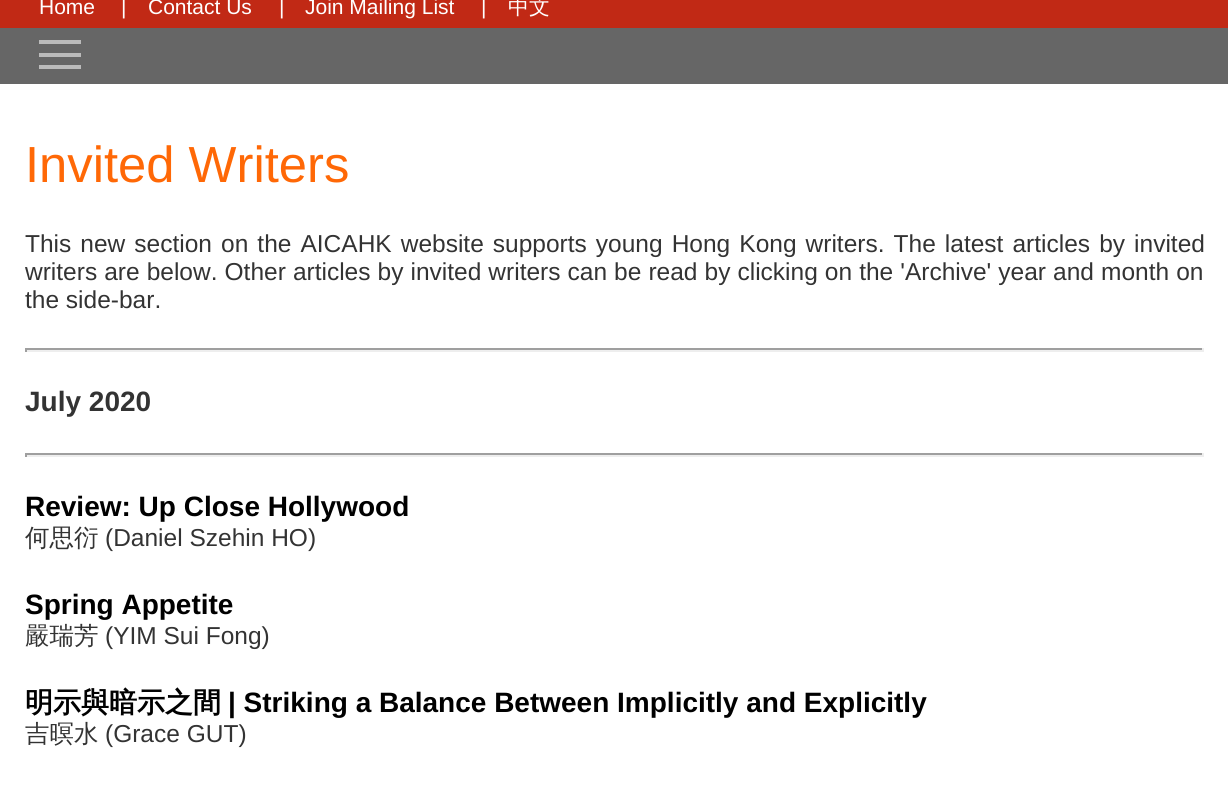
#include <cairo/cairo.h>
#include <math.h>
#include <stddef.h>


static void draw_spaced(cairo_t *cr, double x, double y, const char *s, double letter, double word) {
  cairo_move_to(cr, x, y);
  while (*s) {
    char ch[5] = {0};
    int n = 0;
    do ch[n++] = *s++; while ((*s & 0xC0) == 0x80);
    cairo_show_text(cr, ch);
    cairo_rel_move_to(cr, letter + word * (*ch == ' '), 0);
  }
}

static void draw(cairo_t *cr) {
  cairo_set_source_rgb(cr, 1, 1, 1);
  cairo_paint(cr);
  cairo_set_source_rgb(cr, 193 / 255.0, 41 / 255.0, 21 / 255.0);
  cairo_rectangle(cr, 0, 0, 1228, 28);
  cairo_fill(cr);
  cairo_set_source_rgb(cr, 102 / 255.0, 102 / 255.0, 102 / 255.0);
  cairo_rectangle(cr, 0, 28, 1228, 56);
  cairo_fill(cr);
  cairo_set_source_rgb(cr, 187 / 255.0, 187 / 255.0, 187 / 255.0);
  cairo_rectangle(cr, 39, 53, 42, 4);
  cairo_fill(cr);
  cairo_rectangle(cr, 39, 40, 42, 4);
  cairo_fill(cr);
  cairo_rectangle(cr, 39, 65, 42, 4);
  cairo_fill(cr);
  cairo_set_source_rgb(cr, 159 / 255.0, 159 / 255.0, 159 / 255.0);
  cairo_rectangle(cr, 25, 348, 1179, 2);
  cairo_fill(cr);
  cairo_set_source_rgb(cr, 238 / 255.0, 238 / 255.0, 238 / 255.0);
  cairo_rectangle(cr, 1202, 348, 2, 4);
  cairo_fill(cr);
  cairo_rectangle(cr, 25, 350, 1179, 2);
  cairo_fill(cr);
  cairo_set_source_rgb(cr, 159 / 255.0, 159 / 255.0, 159 / 255.0);
  cairo_rectangle(cr, 25, 348, 2, 4);
  cairo_fill(cr);
  cairo_rectangle(cr, 25, 453, 1179, 2);
  cairo_fill(cr);
  cairo_set_source_rgb(cr, 238 / 255.0, 238 / 255.0, 238 / 255.0);
  cairo_rectangle(cr, 1202, 453, 2, 4);
  cairo_fill(cr);
  cairo_rectangle(cr, 25, 455, 1179, 2);
  cairo_fill(cr);
  cairo_set_source_rgb(cr, 159 / 255.0, 159 / 255.0, 159 / 255.0);
  cairo_rectangle(cr, 25, 453, 2, 4);
  cairo_fill(cr);
  cairo_select_font_face(cr, "Liberation Sans", CAIRO_FONT_SLANT_NORMAL, CAIRO_FONT_WEIGHT_NORMAL);
  cairo_set_font_size(cr, 21);
  cairo_set_source_rgb(cr, 1, 1, 1);
  cairo_move_to(cr, 39, 14);
  cairo_show_text(cr, "Home");
  cairo_move_to(cr, 121, 14);
  cairo_show_text(cr, "|");
  cairo_move_to(cr, 148, 14);
  cairo_show_text(cr, "Contact Us");
  cairo_move_to(cr, 279, 14);
  cairo_show_text(cr, "|");
  cairo_move_to(cr, 305, 14);
  cairo_show_text(cr, "Join Mailing List");
  cairo_move_to(cr, 481, 14);
  cairo_show_text(cr, "|");
  cairo_select_font_face(cr, "WenQuanYi Zen Hei Medium", CAIRO_FONT_SLANT_NORMAL, CAIRO_FONT_WEIGHT_NORMAL);
  cairo_move_to(cr, 508, 14);
  cairo_show_text(cr, "中文");
  cairo_select_font_face(cr, "Liberation Sans", CAIRO_FONT_SLANT_NORMAL, CAIRO_FONT_WEIGHT_NORMAL);
  cairo_set_font_size(cr, 50.75);
  cairo_set_source_rgb(cr, 1, 104 / 255.0, 6 / 255.0);
  cairo_move_to(cr, 25, 182);
  cairo_show_text(cr, "Invited Writers");
  cairo_set_font_size(cr, 24.5);
  cairo_set_source_rgb(cr, 51 / 255.0, 51 / 255.0, 51 / 255.0);
  draw_spaced(cr, 25, 252, "This new section on the AICAHK website supports young Hong Kong writers. The latest articles by invited", 0, 2.25);
  draw_spaced(cr, 25, 280, "writers are below. Other articles by invited writers can be read by clicking on the 'Archive' year and month on", 0, 0.25);
  cairo_move_to(cr, 25, 308);
  cairo_show_text(cr, "the side-bar.");
  cairo_select_font_face(cr, "Liberation Sans", CAIRO_FONT_SLANT_NORMAL, CAIRO_FONT_WEIGHT_BOLD);
  cairo_set_font_size(cr, 28);
  cairo_move_to(cr, 25, 411);
  cairo_show_text(cr, "July 2020");
  cairo_set_source_rgb(cr, 0, 0, 0);
  cairo_move_to(cr, 25, 516);
  cairo_show_text(cr, "Review: Up Close Hollywood");
  cairo_select_font_face(cr, "WenQuanYi Zen Hei Medium", CAIRO_FONT_SLANT_NORMAL, CAIRO_FONT_WEIGHT_NORMAL);
  cairo_set_font_size(cr, 24.5);
  cairo_set_source_rgb(cr, 51 / 255.0, 51 / 255.0, 51 / 255.0);
  cairo_move_to(cr, 25, 546);
  cairo_show_text(cr, "何思衍");
  cairo_select_font_face(cr, "Liberation Sans", CAIRO_FONT_SLANT_NORMAL, CAIRO_FONT_WEIGHT_NORMAL);
  cairo_move_to(cr, 105, 546);
  cairo_show_text(cr, "(Daniel Szehin HO)");
  cairo_select_font_face(cr, "Liberation Sans", CAIRO_FONT_SLANT_NORMAL, CAIRO_FONT_WEIGHT_BOLD);
  cairo_set_font_size(cr, 28);
  cairo_set_source_rgb(cr, 0, 0, 0);
  cairo_move_to(cr, 25, 614);
  cairo_show_text(cr, "Spring Appetite");
  cairo_select_font_face(cr, "WenQuanYi Zen Hei Medium", CAIRO_FONT_SLANT_NORMAL, CAIRO_FONT_WEIGHT_NORMAL);
  cairo_set_font_size(cr, 24.5);
  cairo_set_source_rgb(cr, 51 / 255.0, 51 / 255.0, 51 / 255.0);
  cairo_move_to(cr, 25, 644);
  cairo_show_text(cr, "嚴瑞芳");
  cairo_select_font_face(cr, "Liberation Sans", CAIRO_FONT_SLANT_NORMAL, CAIRO_FONT_WEIGHT_NORMAL);
  cairo_move_to(cr, 105, 644);
  cairo_show_text(cr, "(YIM Sui Fong)");
  cairo_select_font_face(cr, "WenQuanYi Zen Hei", CAIRO_FONT_SLANT_NORMAL, CAIRO_FONT_WEIGHT_BOLD);
  cairo_set_font_size(cr, 28);
  cairo_set_source_rgb(cr, 0, 0, 0);
  cairo_move_to(cr, 25, 712);
  cairo_show_text(cr, "明示與暗示之間");
  cairo_select_font_face(cr, "Liberation Sans", CAIRO_FONT_SLANT_NORMAL, CAIRO_FONT_WEIGHT_BOLD);
  cairo_move_to(cr, 228, 712);
  cairo_show_text(cr, "| Striking a Balance Between Implicitly and Explicitly");
  cairo_select_font_face(cr, "WenQuanYi Zen Hei Medium", CAIRO_FONT_SLANT_NORMAL, CAIRO_FONT_WEIGHT_NORMAL);
  cairo_set_font_size(cr, 24.5);
  cairo_set_source_rgb(cr, 51 / 255.0, 51 / 255.0, 51 / 255.0);
  cairo_move_to(cr, 25, 742);
  cairo_show_text(cr, "吉暝水");
  cairo_select_font_face(cr, "Liberation Sans", CAIRO_FONT_SLANT_NORMAL, CAIRO_FONT_WEIGHT_NORMAL);
  cairo_move_to(cr, 105, 742);
  cairo_show_text(cr, "(Grace GUT)");
}

int main(void) {
  cairo_surface_t *surface = cairo_image_surface_create(CAIRO_FORMAT_RGB24, 1228, 801);
  cairo_t *cr = cairo_create(surface);
  cairo_font_options_t *options = cairo_font_options_create();
  cairo_font_options_set_hint_metrics(options, CAIRO_HINT_METRICS_OFF);
  cairo_font_options_set_hint_style(options, CAIRO_HINT_STYLE_NONE);
  cairo_set_font_options(cr, options);
  cairo_set_miter_limit(cr, 4);
  draw(cr);
  cairo_surface_write_to_png(surface, "out.png");
  cairo_font_options_destroy(options);
  cairo_destroy(cr);
  cairo_surface_destroy(surface);
  return 0;
}
